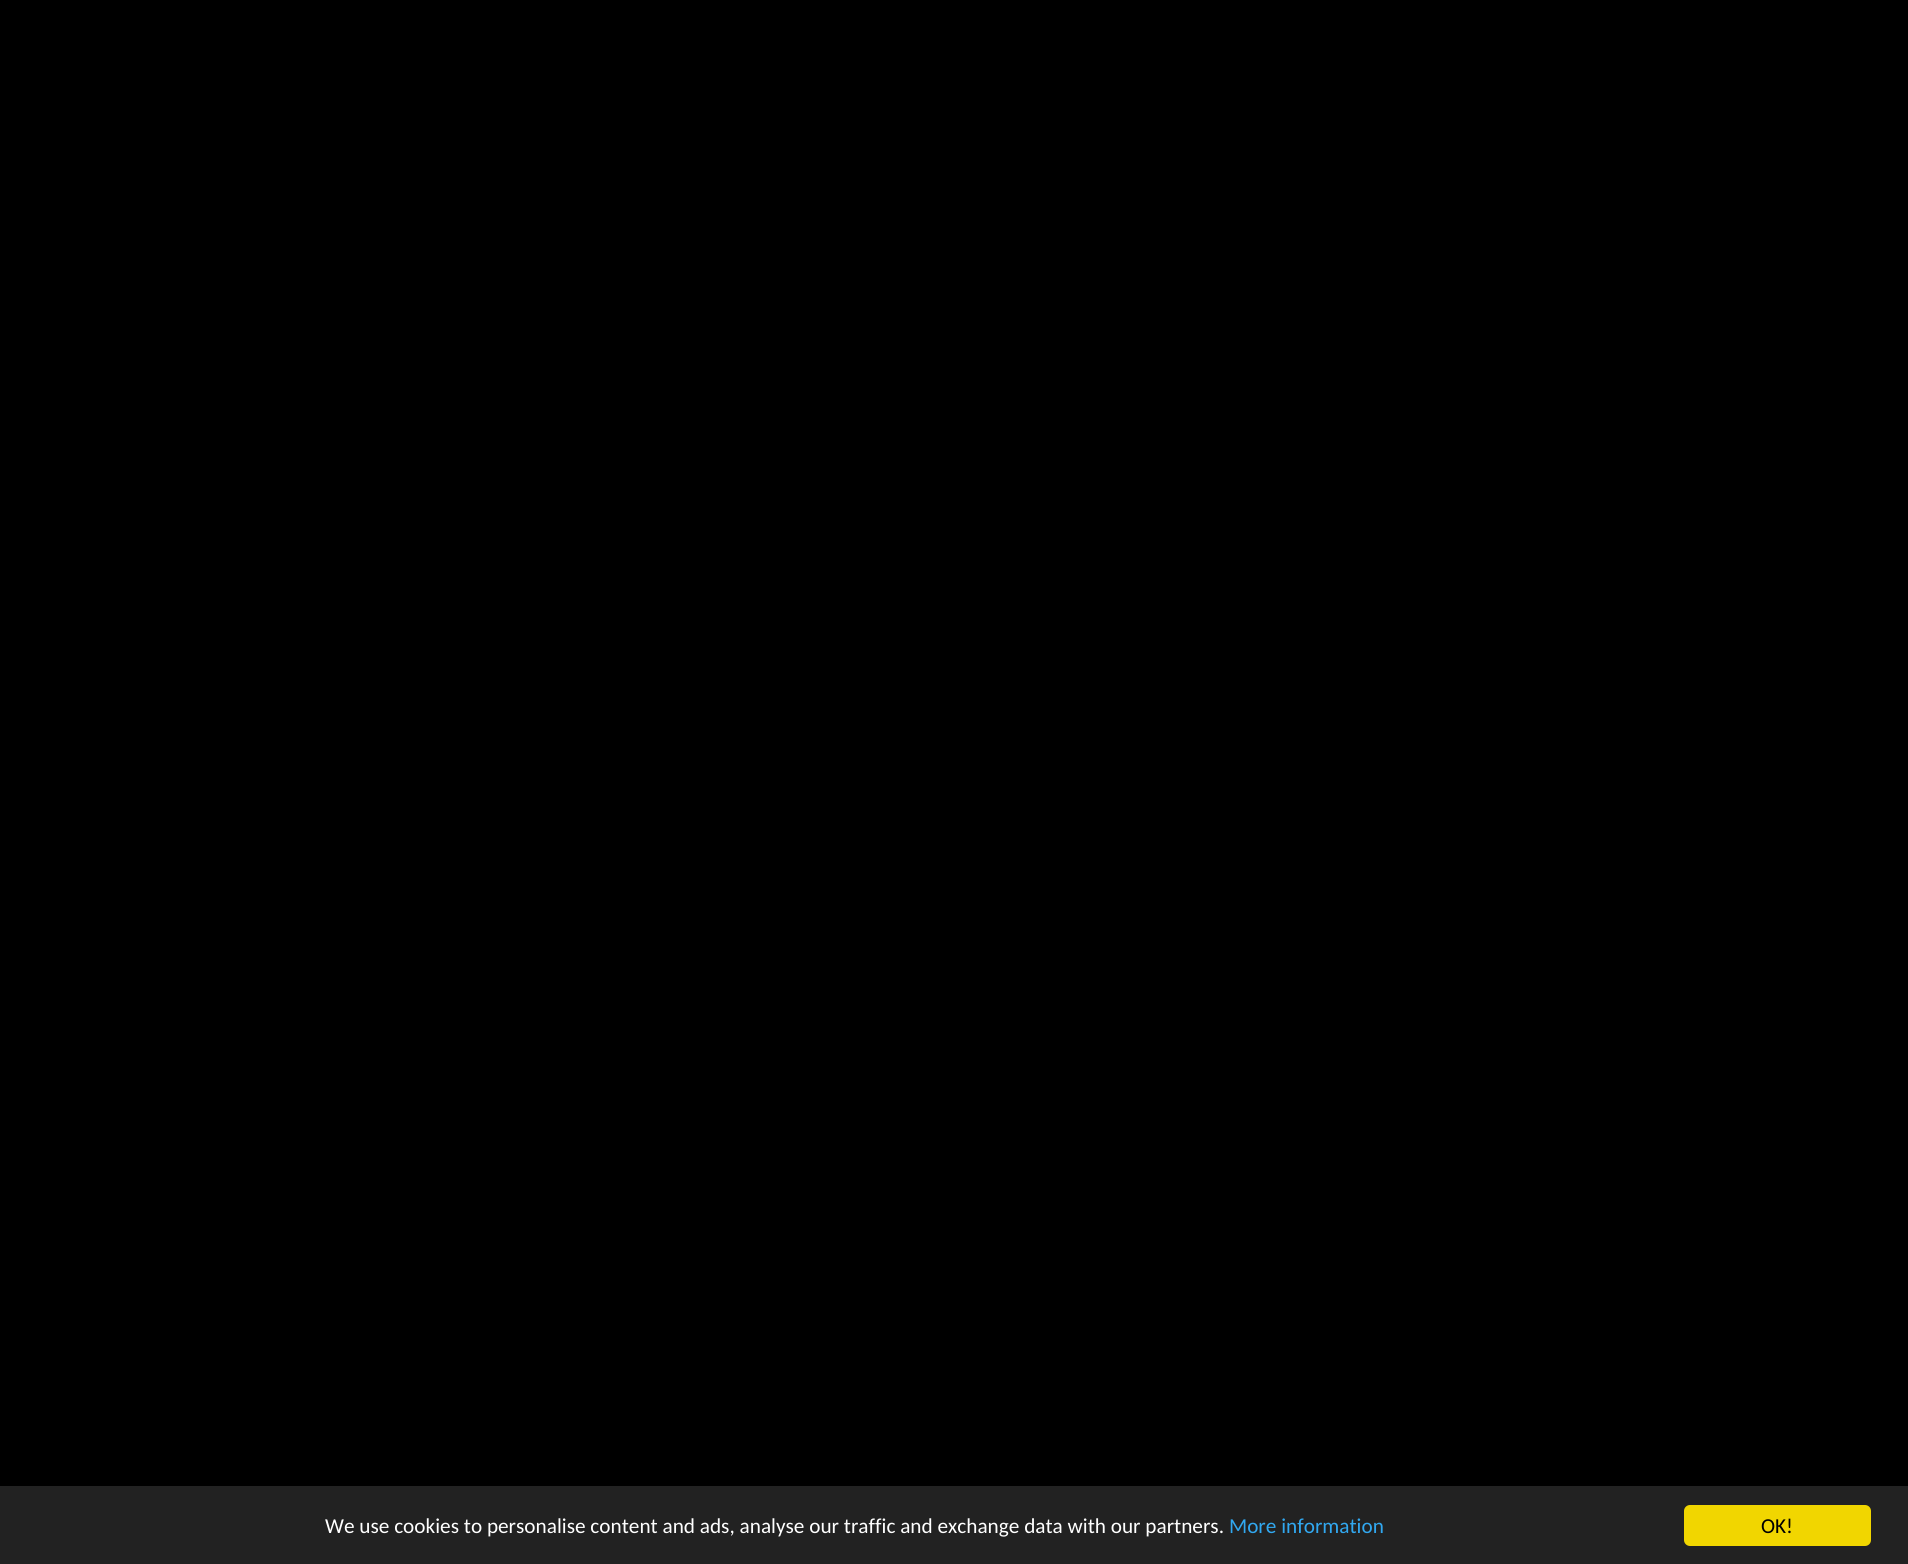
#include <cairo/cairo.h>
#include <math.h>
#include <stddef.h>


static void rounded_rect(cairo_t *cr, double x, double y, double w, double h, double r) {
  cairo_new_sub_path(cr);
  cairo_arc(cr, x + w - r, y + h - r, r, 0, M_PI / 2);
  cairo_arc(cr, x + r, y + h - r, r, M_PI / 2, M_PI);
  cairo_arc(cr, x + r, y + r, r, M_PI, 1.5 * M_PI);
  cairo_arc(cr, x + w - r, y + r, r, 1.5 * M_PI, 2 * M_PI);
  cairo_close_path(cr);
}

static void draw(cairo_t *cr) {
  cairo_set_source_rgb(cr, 0, 0, 0);
  cairo_paint(cr);
  cairo_set_source_rgb(cr, 34 / 255.0, 34 / 255.0, 34 / 255.0);
  cairo_rectangle(cr, 0, 1486, 1908, 78);
  cairo_fill(cr);
  cairo_set_source_rgb(cr, 241 / 255.0, 214 / 255.0, 0);
  rounded_rect(cr, 1684, 1505, 187, 41, 6);
  cairo_fill(cr);
  cairo_select_font_face(cr, "Carlito", CAIRO_FONT_SLANT_NORMAL, CAIRO_FONT_WEIGHT_NORMAL);
  cairo_set_font_size(cr, 21.25);
  cairo_set_source_rgb(cr, 1, 1, 1);
  cairo_move_to(cr, 325, 1533);
  cairo_show_text(cr, "We use cookies to personalise content and ads, analyse our traffic and exchange data with our partners.");
  cairo_set_source_rgb(cr, 49 / 255.0, 168 / 255.0, 240 / 255.0);
  cairo_move_to(cr, 1229, 1533);
  cairo_show_text(cr, "More information");
  cairo_set_source_rgb(cr, 0, 0, 0);
  cairo_move_to(cr, 1761, 1533);
  cairo_show_text(cr, "OK!");
}

int main(void) {
  cairo_surface_t *surface = cairo_image_surface_create(CAIRO_FORMAT_RGB24, 1908, 1564);
  cairo_t *cr = cairo_create(surface);
  cairo_font_options_t *options = cairo_font_options_create();
  cairo_font_options_set_hint_metrics(options, CAIRO_HINT_METRICS_OFF);
  cairo_font_options_set_hint_style(options, CAIRO_HINT_STYLE_NONE);
  cairo_set_font_options(cr, options);
  cairo_set_miter_limit(cr, 4);
  draw(cr);
  cairo_surface_write_to_png(surface, "out.png");
  cairo_font_options_destroy(options);
  cairo_destroy(cr);
  cairo_surface_destroy(surface);
  return 0;
}
